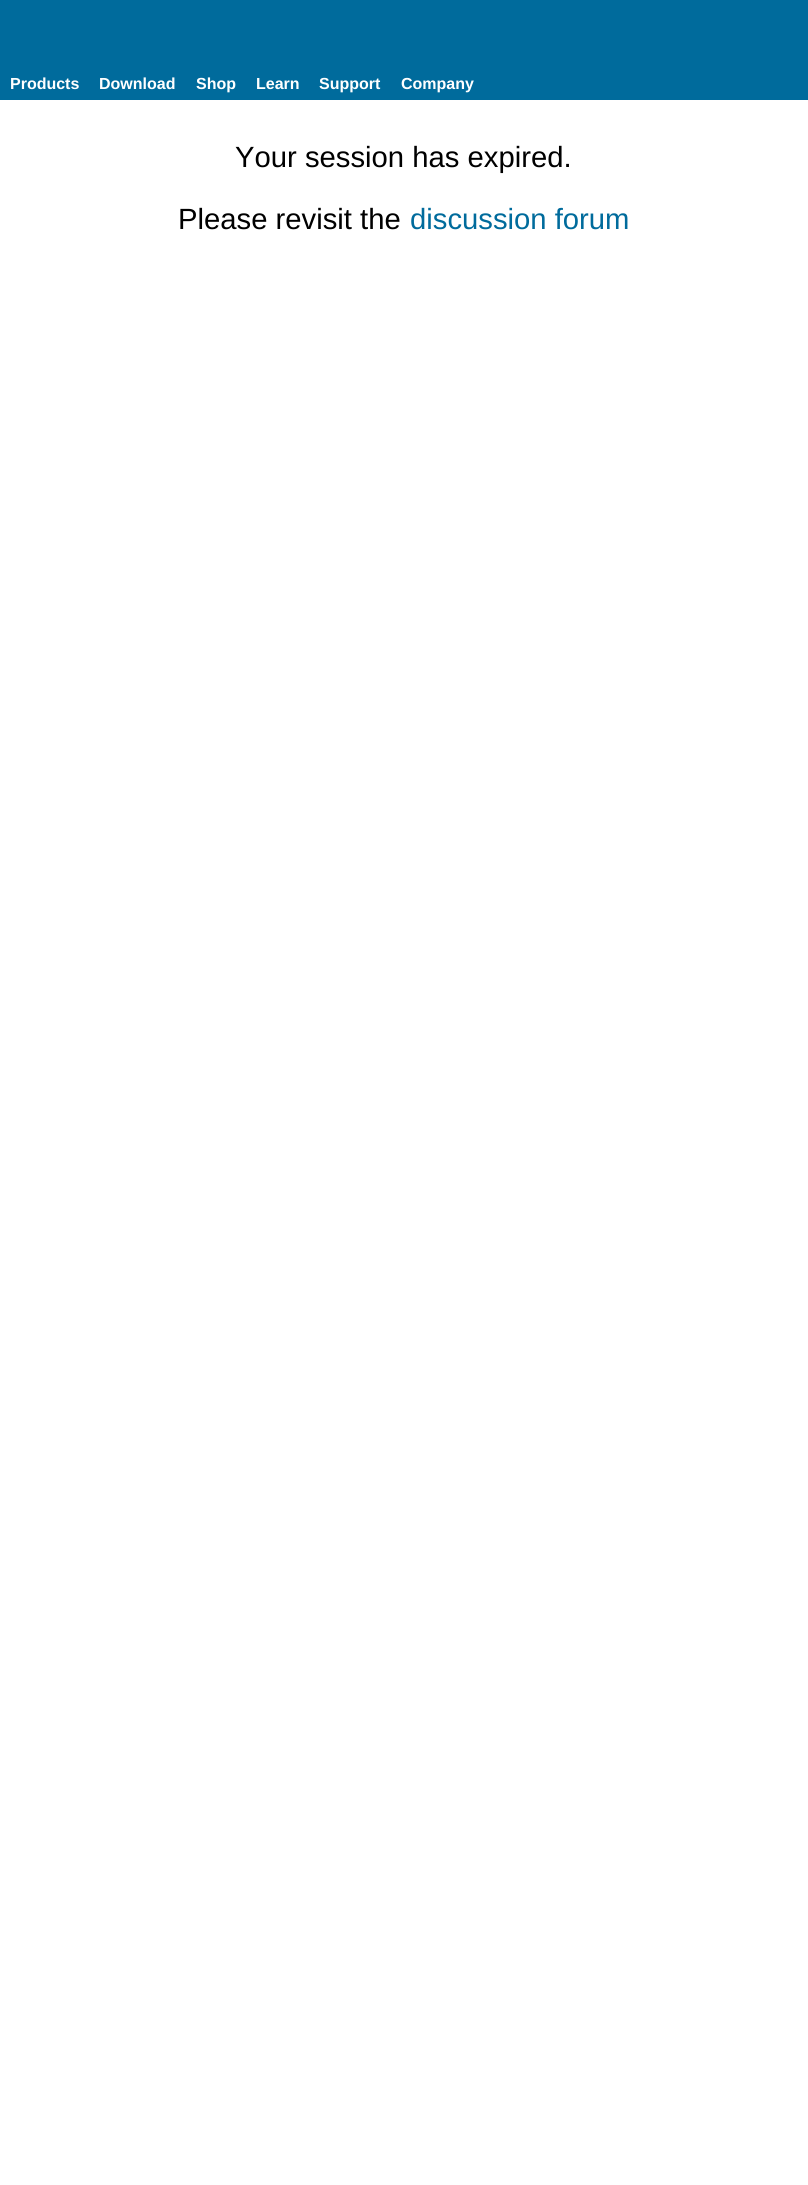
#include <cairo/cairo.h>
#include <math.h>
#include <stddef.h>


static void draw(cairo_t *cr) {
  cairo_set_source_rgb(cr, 1, 1, 1);
  cairo_paint(cr);
  cairo_set_source_rgb(cr, 0, 107 / 255.0, 156 / 255.0);
  cairo_rectangle(cr, 0, 0, 808, 100);
  cairo_fill(cr);
  cairo_select_font_face(cr, "Liberation Sans", CAIRO_FONT_SLANT_NORMAL, CAIRO_FONT_WEIGHT_BOLD);
  cairo_set_font_size(cr, 16);
  cairo_set_source_rgb(cr, 1, 1, 1);
  cairo_move_to(cr, 10, 89);
  cairo_show_text(cr, "Products");
  cairo_move_to(cr, 99, 89);
  cairo_show_text(cr, "Download");
  cairo_move_to(cr, 196, 89);
  cairo_show_text(cr, "Shop");
  cairo_move_to(cr, 256, 89);
  cairo_show_text(cr, "Learn");
  cairo_move_to(cr, 319, 89);
  cairo_show_text(cr, "Support");
  cairo_move_to(cr, 401, 89);
  cairo_show_text(cr, "Company");
  cairo_select_font_face(cr, "Liberation Sans", CAIRO_FONT_SLANT_NORMAL, CAIRO_FONT_WEIGHT_NORMAL);
  cairo_set_font_size(cr, 29.25);
  cairo_set_source_rgb(cr, 0, 0, 0);
  cairo_move_to(cr, 235, 167);
  cairo_show_text(cr, "Your session has expired.");
  cairo_move_to(cr, 178, 229);
  cairo_show_text(cr, "Please revisit the");
  cairo_set_source_rgb(cr, 0, 107 / 255.0, 156 / 255.0);
  cairo_move_to(cr, 410, 229);
  cairo_show_text(cr, "discussion forum");
}

int main(void) {
  cairo_surface_t *surface = cairo_image_surface_create(CAIRO_FORMAT_RGB24, 808, 2185);
  cairo_t *cr = cairo_create(surface);
  cairo_font_options_t *options = cairo_font_options_create();
  cairo_font_options_set_hint_metrics(options, CAIRO_HINT_METRICS_OFF);
  cairo_font_options_set_hint_style(options, CAIRO_HINT_STYLE_NONE);
  cairo_set_font_options(cr, options);
  cairo_set_miter_limit(cr, 4);
  draw(cr);
  cairo_surface_write_to_png(surface, "out.png");
  cairo_font_options_destroy(options);
  cairo_destroy(cr);
  cairo_surface_destroy(surface);
  return 0;
}
